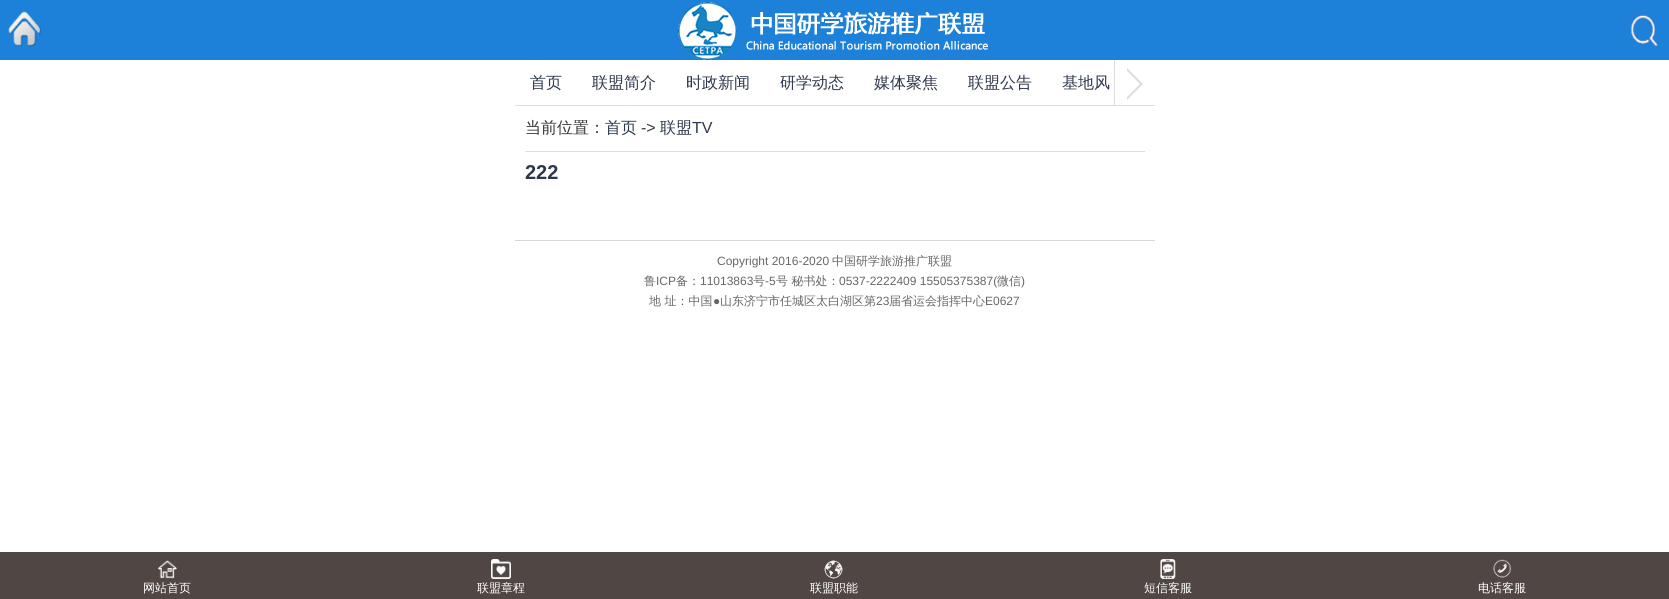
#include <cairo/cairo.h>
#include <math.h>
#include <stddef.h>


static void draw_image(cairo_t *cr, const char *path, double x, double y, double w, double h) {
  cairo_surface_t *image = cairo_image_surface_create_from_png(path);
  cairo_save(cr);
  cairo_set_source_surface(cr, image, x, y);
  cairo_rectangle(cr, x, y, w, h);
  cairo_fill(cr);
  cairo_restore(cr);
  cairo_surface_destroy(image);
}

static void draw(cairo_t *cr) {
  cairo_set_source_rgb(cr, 1, 1, 1);
  cairo_paint(cr);
  cairo_set_source_rgb(cr, 29 / 255.0, 129 / 255.0, 217 / 255.0);
  cairo_rectangle(cr, 0, 0, 1669, 60);
  cairo_fill(cr);
  draw_image(cr, "images/1.png", 8, 11, 33, 36);
  draw_image(cr, "images/2.png", 678, 2, 310, 58);
  draw_image(cr, "images/3.png", 1630, 14, 28, 33);
  cairo_set_source_rgb(cr, 221 / 255.0, 221 / 255.0, 221 / 255.0);
  cairo_rectangle(cr, 515, 105, 640, 1);
  cairo_fill(cr);
  cairo_rectangle(cr, 1114, 60, 1, 45);
  cairo_fill(cr);
  cairo_new_path(cr);
  cairo_move_to(cr, 1127, 100);
  cairo_line_to(cr, 1127, 68);
  cairo_line_to(cr, 1143, 84);
  cairo_close_path(cr);
  cairo_fill(cr);
  cairo_set_source_rgb(cr, 1, 1, 1);
  cairo_new_path(cr);
  cairo_move_to(cr, 1124, 100);
  cairo_line_to(cr, 1124, 68);
  cairo_line_to(cr, 1140, 84);
  cairo_close_path(cr);
  cairo_fill(cr);
  cairo_set_source_rgb(cr, 221 / 255.0, 221 / 255.0, 221 / 255.0);
  cairo_rectangle(cr, 525, 151, 620, 1);
  cairo_fill(cr);
  cairo_set_source_rgb(cr, 215 / 255.0, 216 / 255.0, 216 / 255.0);
  cairo_rectangle(cr, 515, 240, 640, 1);
  cairo_fill(cr);
  cairo_set_source_rgb(cr, 80 / 255.0, 70 / 255.0, 68 / 255.0);
  cairo_rectangle(cr, 0, 552, 1669, 47);
  cairo_fill(cr);
  draw_image(cr, "images/4.png", 158, 560, 19, 19);
  draw_image(cr, "images/5.png", 491, 559, 20, 20);
  draw_image(cr, "images/6.png", 824, 560, 19, 19);
  draw_image(cr, "images/7.png", 1160, 559, 16, 20);
  draw_image(cr, "images/8.png", 1493, 559, 19, 19);
  cairo_select_font_face(cr, "WenQuanYi Zen Hei Medium", CAIRO_FONT_SLANT_NORMAL, CAIRO_FONT_WEIGHT_NORMAL);
  cairo_set_font_size(cr, 16);
  cairo_set_source_rgb(cr, 45 / 255.0, 55 / 255.0, 75 / 255.0);
  cairo_move_to(cr, 530, 88);
  cairo_show_text(cr, "首页");
  cairo_move_to(cr, 592, 88);
  cairo_show_text(cr, "联盟简介");
  cairo_move_to(cr, 686, 88);
  cairo_show_text(cr, "时政新闻");
  cairo_move_to(cr, 780, 88);
  cairo_show_text(cr, "研学动态");
  cairo_move_to(cr, 874, 88);
  cairo_show_text(cr, "媒体聚焦");
  cairo_move_to(cr, 968, 88);
  cairo_show_text(cr, "联盟公告");
  cairo_move_to(cr, 1062, 88);
  cairo_show_text(cr, "基地风");
  cairo_set_source_rgb(cr, 51 / 255.0, 51 / 255.0, 51 / 255.0);
  cairo_move_to(cr, 525, 133);
  cairo_show_text(cr, "当前位置：");
  cairo_set_source_rgb(cr, 45 / 255.0, 55 / 255.0, 75 / 255.0);
  cairo_move_to(cr, 605, 133);
  cairo_show_text(cr, "首页");
  cairo_select_font_face(cr, "Liberation Sans", CAIRO_FONT_SLANT_NORMAL, CAIRO_FONT_WEIGHT_NORMAL);
  cairo_set_source_rgb(cr, 51 / 255.0, 51 / 255.0, 51 / 255.0);
  cairo_move_to(cr, 641, 133);
  cairo_show_text(cr, "->");
  cairo_select_font_face(cr, "WenQuanYi Zen Hei Medium", CAIRO_FONT_SLANT_NORMAL, CAIRO_FONT_WEIGHT_NORMAL);
  cairo_set_source_rgb(cr, 45 / 255.0, 55 / 255.0, 75 / 255.0);
  cairo_move_to(cr, 660, 133);
  cairo_show_text(cr, "联盟");
  cairo_select_font_face(cr, "Liberation Sans", CAIRO_FONT_SLANT_NORMAL, CAIRO_FONT_WEIGHT_NORMAL);
  cairo_move_to(cr, 692, 133);
  cairo_show_text(cr, "TV");
  cairo_select_font_face(cr, "Liberation Sans", CAIRO_FONT_SLANT_NORMAL, CAIRO_FONT_WEIGHT_BOLD);
  cairo_set_font_size(cr, 20);
  cairo_move_to(cr, 525, 179);
  cairo_show_text(cr, "222");
  cairo_select_font_face(cr, "Liberation Sans", CAIRO_FONT_SLANT_NORMAL, CAIRO_FONT_WEIGHT_NORMAL);
  cairo_set_font_size(cr, 12);
  cairo_set_source_rgb(cr, 102 / 255.0, 102 / 255.0, 102 / 255.0);
  cairo_move_to(cr, 717, 265);
  cairo_show_text(cr, "Copyright 2016-2020");
  cairo_select_font_face(cr, "WenQuanYi Zen Hei Medium", CAIRO_FONT_SLANT_NORMAL, CAIRO_FONT_WEIGHT_NORMAL);
  cairo_move_to(cr, 832, 265);
  cairo_show_text(cr, "中国研学旅游推广联盟");
  cairo_move_to(cr, 644, 285);
  cairo_show_text(cr, "鲁");
  cairo_select_font_face(cr, "Liberation Sans", CAIRO_FONT_SLANT_NORMAL, CAIRO_FONT_WEIGHT_NORMAL);
  cairo_move_to(cr, 656, 285);
  cairo_show_text(cr, "ICP");
  cairo_select_font_face(cr, "WenQuanYi Zen Hei Medium", CAIRO_FONT_SLANT_NORMAL, CAIRO_FONT_WEIGHT_NORMAL);
  cairo_move_to(cr, 676, 285);
  cairo_show_text(cr, "备：");
  cairo_select_font_face(cr, "Liberation Sans", CAIRO_FONT_SLANT_NORMAL, CAIRO_FONT_WEIGHT_NORMAL);
  cairo_move_to(cr, 700, 285);
  cairo_show_text(cr, "11013863");
  cairo_select_font_face(cr, "WenQuanYi Zen Hei Medium", CAIRO_FONT_SLANT_NORMAL, CAIRO_FONT_WEIGHT_NORMAL);
  cairo_move_to(cr, 753, 285);
  cairo_show_text(cr, "号");
  cairo_select_font_face(cr, "Liberation Sans", CAIRO_FONT_SLANT_NORMAL, CAIRO_FONT_WEIGHT_NORMAL);
  cairo_move_to(cr, 765, 285);
  cairo_show_text(cr, "-5");
  cairo_select_font_face(cr, "WenQuanYi Zen Hei Medium", CAIRO_FONT_SLANT_NORMAL, CAIRO_FONT_WEIGHT_NORMAL);
  cairo_move_to(cr, 776, 285);
  cairo_show_text(cr, "号 秘书处：");
  cairo_select_font_face(cr, "Liberation Sans", CAIRO_FONT_SLANT_NORMAL, CAIRO_FONT_WEIGHT_NORMAL);
  cairo_move_to(cr, 839, 285);
  cairo_show_text(cr, "0537-2222409 15505375387(");
  cairo_select_font_face(cr, "WenQuanYi Zen Hei Medium", CAIRO_FONT_SLANT_NORMAL, CAIRO_FONT_WEIGHT_NORMAL);
  cairo_move_to(cr, 997, 285);
  cairo_show_text(cr, "微信");
  cairo_select_font_face(cr, "Liberation Sans", CAIRO_FONT_SLANT_NORMAL, CAIRO_FONT_WEIGHT_NORMAL);
  cairo_move_to(cr, 1021, 285);
  cairo_show_text(cr, ")");
  cairo_select_font_face(cr, "WenQuanYi Zen Hei Medium", CAIRO_FONT_SLANT_NORMAL, CAIRO_FONT_WEIGHT_NORMAL);
  cairo_move_to(cr, 649, 305);
  cairo_show_text(cr, "地 址：中国");
  cairo_select_font_face(cr, "Liberation Sans", CAIRO_FONT_SLANT_NORMAL, CAIRO_FONT_WEIGHT_NORMAL);
  cairo_move_to(cr, 713, 305);
  cairo_show_text(cr, "●");
  cairo_select_font_face(cr, "WenQuanYi Zen Hei Medium", CAIRO_FONT_SLANT_NORMAL, CAIRO_FONT_WEIGHT_NORMAL);
  cairo_move_to(cr, 720, 305);
  cairo_show_text(cr, "山东济宁市任城区太白湖区第");
  cairo_select_font_face(cr, "Liberation Sans", CAIRO_FONT_SLANT_NORMAL, CAIRO_FONT_WEIGHT_NORMAL);
  cairo_move_to(cr, 876, 305);
  cairo_show_text(cr, "23");
  cairo_select_font_face(cr, "WenQuanYi Zen Hei Medium", CAIRO_FONT_SLANT_NORMAL, CAIRO_FONT_WEIGHT_NORMAL);
  cairo_move_to(cr, 889, 305);
  cairo_show_text(cr, "届省运会指挥中心");
  cairo_select_font_face(cr, "Liberation Sans", CAIRO_FONT_SLANT_NORMAL, CAIRO_FONT_WEIGHT_NORMAL);
  cairo_move_to(cr, 985, 305);
  cairo_show_text(cr, "E0627");
  cairo_select_font_face(cr, "WenQuanYi Zen Hei Medium", CAIRO_FONT_SLANT_NORMAL, CAIRO_FONT_WEIGHT_NORMAL);
  cairo_set_source_rgb(cr, 1, 1, 1);
  cairo_move_to(cr, 143, 592);
  cairo_show_text(cr, "网站首页");
  cairo_move_to(cr, 477, 592);
  cairo_show_text(cr, "联盟章程");
  cairo_move_to(cr, 810, 592);
  cairo_show_text(cr, "联盟职能");
  cairo_move_to(cr, 1144, 592);
  cairo_show_text(cr, "短信客服");
  cairo_move_to(cr, 1478, 592);
  cairo_show_text(cr, "电话客服");
}

int main(void) {
  cairo_surface_t *surface = cairo_image_surface_create(CAIRO_FORMAT_RGB24, 1669, 599);
  cairo_t *cr = cairo_create(surface);
  cairo_font_options_t *options = cairo_font_options_create();
  cairo_font_options_set_hint_metrics(options, CAIRO_HINT_METRICS_OFF);
  cairo_font_options_set_hint_style(options, CAIRO_HINT_STYLE_NONE);
  cairo_set_font_options(cr, options);
  cairo_set_miter_limit(cr, 4);
  draw(cr);
  cairo_surface_write_to_png(surface, "out.png");
  cairo_font_options_destroy(options);
  cairo_destroy(cr);
  cairo_surface_destroy(surface);
  return 0;
}
